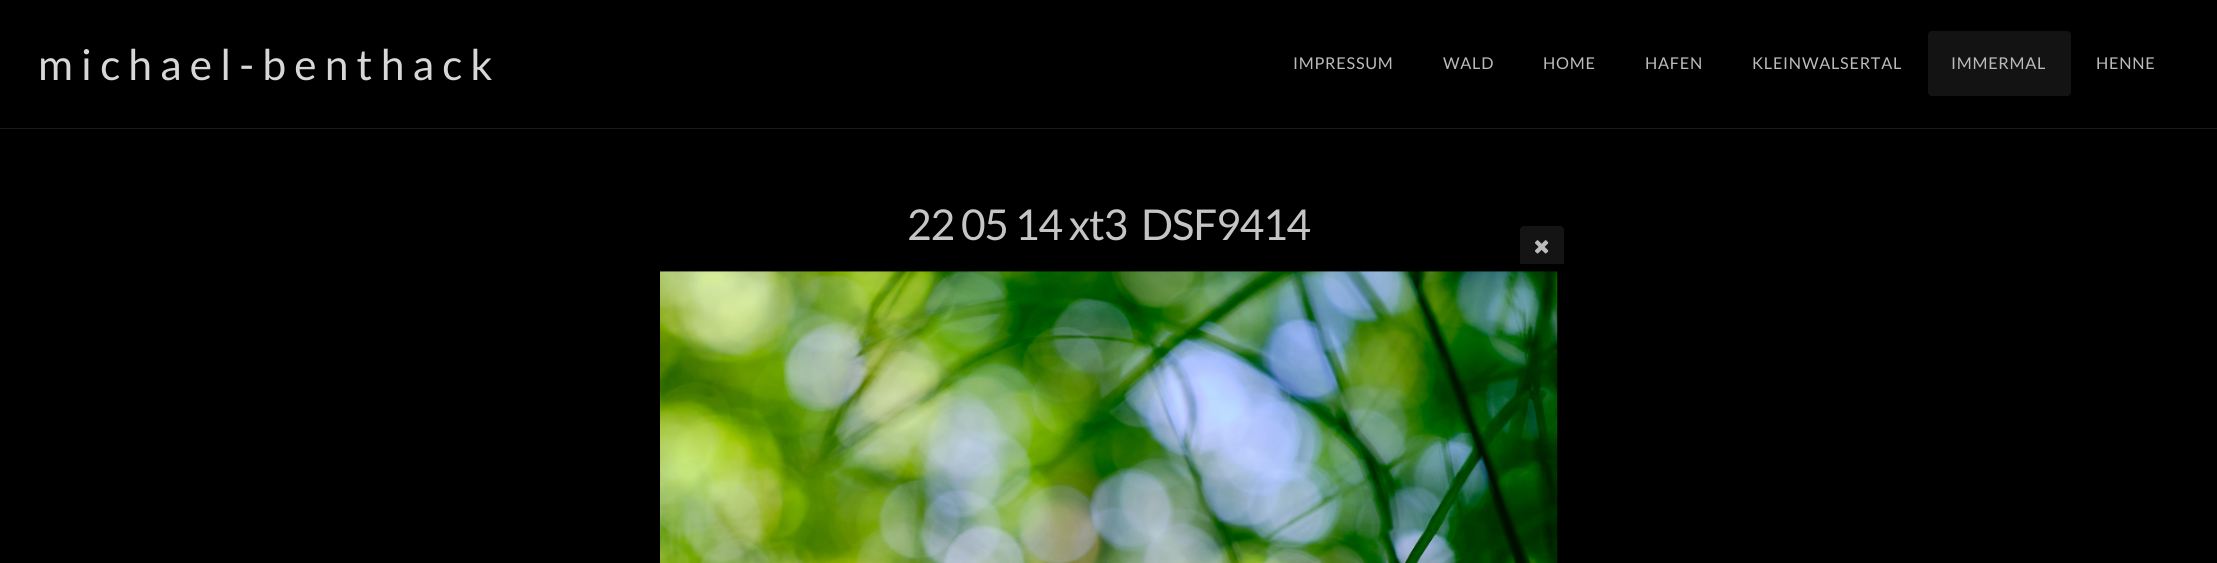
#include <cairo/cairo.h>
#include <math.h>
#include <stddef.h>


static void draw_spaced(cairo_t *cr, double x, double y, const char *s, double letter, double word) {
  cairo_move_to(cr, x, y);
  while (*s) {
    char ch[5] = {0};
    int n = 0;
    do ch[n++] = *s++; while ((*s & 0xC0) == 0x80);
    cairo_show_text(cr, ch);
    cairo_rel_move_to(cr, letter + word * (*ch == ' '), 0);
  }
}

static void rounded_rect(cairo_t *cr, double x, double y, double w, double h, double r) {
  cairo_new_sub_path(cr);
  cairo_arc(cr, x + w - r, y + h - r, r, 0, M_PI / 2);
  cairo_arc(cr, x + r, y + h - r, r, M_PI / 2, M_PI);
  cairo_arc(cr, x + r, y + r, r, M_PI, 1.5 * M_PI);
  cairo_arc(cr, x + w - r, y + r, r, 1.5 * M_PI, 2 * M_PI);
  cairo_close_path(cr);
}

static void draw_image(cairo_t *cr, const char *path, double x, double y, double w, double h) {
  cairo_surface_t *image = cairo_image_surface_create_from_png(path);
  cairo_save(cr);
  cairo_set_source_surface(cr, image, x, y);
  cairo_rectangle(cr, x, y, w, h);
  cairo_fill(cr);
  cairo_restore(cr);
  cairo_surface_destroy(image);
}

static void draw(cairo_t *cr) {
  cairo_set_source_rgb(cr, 0, 0, 0);
  cairo_paint(cr);
  cairo_set_source_rgb(cr, 26 / 255.0, 26 / 255.0, 26 / 255.0);
  cairo_rectangle(cr, 0, 128, 2217, 1);
  cairo_fill(cr);
  cairo_set_source_rgb(cr, 19 / 255.0, 19 / 255.0, 19 / 255.0);
  rounded_rect(cr, 1928, 31, 143, 65, 4);
  cairo_fill(cr);
  cairo_set_source_rgb(cr, 20 / 255.0, 20 / 255.0, 20 / 255.0);
  cairo_new_path(cr);
  cairo_move_to(cr, 1524, 226);
  cairo_line_to(cr, 1560, 226);
  cairo_curve_to(cr, 1562, 226, 1564, 228, 1564, 230);
  cairo_line_to(cr, 1564, 264);
  cairo_line_to(cr, 1520, 264);
  cairo_line_to(cr, 1520, 230);
  cairo_curve_to(cr, 1520, 228, 1522, 226, 1524, 226);
  cairo_close_path(cr);
  cairo_fill(cr);
  draw_image(cr, "images/1.png", 1535, 240, 14, 14);
  draw_image(cr, "images/2.png", 660, 271, 898, 292);
  cairo_select_font_face(cr, "Lato", CAIRO_FONT_SLANT_NORMAL, CAIRO_FONT_WEIGHT_NORMAL);
  cairo_set_font_size(cr, 42.5);
  cairo_set_source_rgb(cr, 215 / 255.0, 215 / 255.0, 215 / 255.0);
  cairo_move_to(cr, 38, 80);
  cairo_show_text(cr, "m i c h a e l - b e n t h a c k");
  cairo_set_font_size(cr, 16.25);
  cairo_set_source_rgb(cr, 187 / 255.0, 187 / 255.0, 187 / 255.0);
  draw_spaced(cr, 1293, 69, "IMPRESSUM", 0.75, 0);
  draw_spaced(cr, 1443, 69, "WALD", 0.75, 0);
  draw_spaced(cr, 1543, 69, "HOME", 0.75, 0);
  draw_spaced(cr, 1645, 69, "HAFEN", 0.75, 0);
  draw_spaced(cr, 1752, 69, "KLEINWALSERTAL", 0.75, 0);
  draw_spaced(cr, 1951, 69, "IMMERMAL", 0.75, 0);
  draw_spaced(cr, 2096, 69, "HENNE", 0.75, 0);
  cairo_set_font_size(cr, 42.5);
  cairo_set_source_rgb(cr, 197 / 255.0, 197 / 255.0, 197 / 255.0);
  draw_spaced(cr, 907, 240, "22 05 14 xt3  DSF9414", -1.2, 0);
}

int main(void) {
  cairo_surface_t *surface = cairo_image_surface_create(CAIRO_FORMAT_RGB24, 2217, 563);
  cairo_t *cr = cairo_create(surface);
  cairo_font_options_t *options = cairo_font_options_create();
  cairo_font_options_set_hint_metrics(options, CAIRO_HINT_METRICS_OFF);
  cairo_font_options_set_hint_style(options, CAIRO_HINT_STYLE_NONE);
  cairo_set_font_options(cr, options);
  cairo_set_miter_limit(cr, 4);
  draw(cr);
  cairo_surface_write_to_png(surface, "out.png");
  cairo_font_options_destroy(options);
  cairo_destroy(cr);
  cairo_surface_destroy(surface);
  return 0;
}
